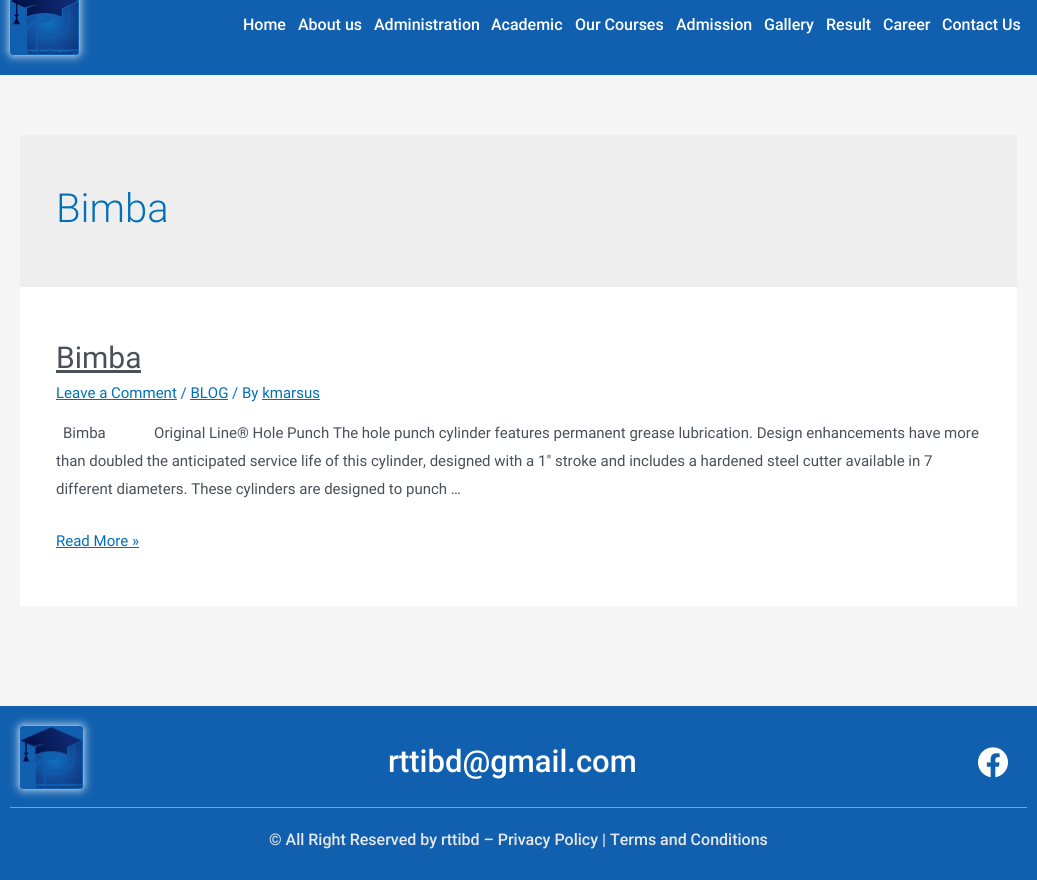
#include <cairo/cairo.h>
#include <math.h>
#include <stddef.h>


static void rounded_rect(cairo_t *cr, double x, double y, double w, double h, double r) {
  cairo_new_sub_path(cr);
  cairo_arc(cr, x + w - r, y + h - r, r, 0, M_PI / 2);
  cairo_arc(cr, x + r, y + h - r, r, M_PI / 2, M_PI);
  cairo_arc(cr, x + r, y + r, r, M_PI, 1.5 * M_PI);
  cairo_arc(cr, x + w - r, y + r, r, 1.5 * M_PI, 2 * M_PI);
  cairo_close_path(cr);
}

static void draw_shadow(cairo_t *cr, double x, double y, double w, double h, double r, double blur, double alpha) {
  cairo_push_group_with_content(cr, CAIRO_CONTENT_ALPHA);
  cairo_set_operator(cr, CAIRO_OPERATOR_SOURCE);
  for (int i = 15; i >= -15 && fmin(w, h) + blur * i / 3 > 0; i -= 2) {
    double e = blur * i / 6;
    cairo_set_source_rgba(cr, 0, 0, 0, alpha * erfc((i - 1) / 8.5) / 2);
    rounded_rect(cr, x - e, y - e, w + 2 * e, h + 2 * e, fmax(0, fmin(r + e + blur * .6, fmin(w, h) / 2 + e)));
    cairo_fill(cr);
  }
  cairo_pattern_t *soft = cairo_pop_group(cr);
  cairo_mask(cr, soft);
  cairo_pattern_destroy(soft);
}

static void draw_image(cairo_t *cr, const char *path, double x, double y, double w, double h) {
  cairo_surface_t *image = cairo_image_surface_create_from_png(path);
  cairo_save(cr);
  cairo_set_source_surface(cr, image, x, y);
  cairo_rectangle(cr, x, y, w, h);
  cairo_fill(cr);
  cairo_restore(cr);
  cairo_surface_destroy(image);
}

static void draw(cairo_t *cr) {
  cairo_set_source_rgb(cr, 245 / 255.0, 245 / 255.0, 245 / 255.0);
  cairo_paint(cr);
  cairo_set_source_rgb(cr, 17 / 255.0, 96 / 255.0, 175 / 255.0);
  cairo_rectangle(cr, 0, 0, 1037, 75);
  cairo_fill(cr);
  cairo_save(cr);
  cairo_set_fill_rule(cr, CAIRO_FILL_RULE_EVEN_ODD);
  cairo_new_path(cr);
  cairo_move_to(cr, 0, 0);
  cairo_line_to(cr, 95, 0);
  cairo_line_to(cr, 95, 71);
  cairo_line_to(cr, 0, 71);
  cairo_close_path(cr);
  cairo_move_to(cr, 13, -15);
  cairo_line_to(cr, 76, -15);
  cairo_curve_to(cr, 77.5, -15, 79, -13.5, 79, -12);
  cairo_line_to(cr, 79, 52);
  cairo_curve_to(cr, 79, 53.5, 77.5, 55, 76, 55);
  cairo_line_to(cr, 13, 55);
  cairo_curve_to(cr, 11.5, 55, 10, 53.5, 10, 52);
  cairo_line_to(cr, 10, -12);
  cairo_curve_to(cr, 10, -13.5, 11.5, -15, 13, -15);
  cairo_close_path(cr);
  cairo_clip(cr);
  cairo_set_source_rgb(cr, 1, 1, 1);
  draw_shadow(cr, 10, -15, 69, 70, 3, 5, 0.98);
  cairo_restore(cr);
  draw_image(cr, "images/1.png", 11, 0, 68, 55);
  cairo_set_source_rgb(cr, 238 / 255.0, 238 / 255.0, 238 / 255.0);
  cairo_rectangle(cr, 20, 135, 997, 152);
  cairo_fill(cr);
  cairo_set_source_rgb(cr, 1, 1, 1);
  cairo_rectangle(cr, 20, 287, 997, 319);
  cairo_fill(cr);
  cairo_set_source_rgb(cr, 75 / 255.0, 79 / 255.0, 88 / 255.0);
  cairo_rectangle(cr, 56, 370, 85, 3);
  cairo_fill(cr);
  cairo_set_source_rgb(cr, 1 / 255.0, 112 / 255.0, 185 / 255.0);
  cairo_rectangle(cr, 56, 399, 121, 1);
  cairo_fill(cr);
  cairo_rectangle(cr, 190, 399, 38, 1);
  cairo_fill(cr);
  cairo_rectangle(cr, 262, 399, 58, 1);
  cairo_fill(cr);
  cairo_rectangle(cr, 56, 547, 83, 1);
  cairo_fill(cr);
  cairo_set_source_rgb(cr, 17 / 255.0, 96 / 255.0, 175 / 255.0);
  cairo_rectangle(cr, 0, 706, 1037, 174);
  cairo_fill(cr);
  cairo_save(cr);
  cairo_set_fill_rule(cr, CAIRO_FILL_RULE_EVEN_ODD);
  cairo_new_path(cr);
  cairo_move_to(cr, 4, 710);
  cairo_line_to(cr, 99, 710);
  cairo_line_to(cr, 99, 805);
  cairo_line_to(cr, 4, 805);
  cairo_close_path(cr);
  cairo_move_to(cr, 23, 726);
  cairo_line_to(cr, 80, 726);
  cairo_curve_to(cr, 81.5, 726, 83, 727.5, 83, 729);
  cairo_line_to(cr, 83, 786);
  cairo_curve_to(cr, 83, 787.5, 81.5, 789, 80, 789);
  cairo_line_to(cr, 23, 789);
  cairo_curve_to(cr, 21.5, 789, 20, 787.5, 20, 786);
  cairo_line_to(cr, 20, 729);
  cairo_curve_to(cr, 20, 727.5, 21.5, 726, 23, 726);
  cairo_close_path(cr);
  cairo_clip(cr);
  cairo_set_source_rgb(cr, 1, 1, 1);
  draw_shadow(cr, 20, 726, 63, 63, 3, 5, 0.98);
  cairo_restore(cr);
  draw_image(cr, "images/2.png", 21, 727, 62, 62);
  draw_image(cr, "images/3.png", 978, 747, 30, 31);
  cairo_set_source_rgb(cr, 155 / 255.0, 155 / 255.0, 155 / 255.0);
  cairo_rectangle(cr, 10, 807, 1017, 1);
  cairo_fill(cr);
  cairo_select_font_face(cr, "Roboto Medium", CAIRO_FONT_SLANT_NORMAL, CAIRO_FONT_WEIGHT_NORMAL);
  cairo_set_font_size(cr, 16);
  cairo_set_source_rgb(cr, 1, 1, 1);
  cairo_move_to(cr, 243, 30);
  cairo_show_text(cr, "Home");
  cairo_move_to(cr, 298, 30);
  cairo_show_text(cr, "About us");
  cairo_move_to(cr, 374, 30);
  cairo_show_text(cr, "Administration");
  cairo_move_to(cr, 491, 30);
  cairo_show_text(cr, "Academic");
  cairo_move_to(cr, 575, 30);
  cairo_show_text(cr, "Our Courses");
  cairo_move_to(cr, 676, 30);
  cairo_show_text(cr, "Admission");
  cairo_move_to(cr, 764, 30);
  cairo_show_text(cr, "Gallery");
  cairo_move_to(cr, 826, 30);
  cairo_show_text(cr, "Result");
  cairo_move_to(cr, 883, 30);
  cairo_show_text(cr, "Career");
  cairo_move_to(cr, 942, 30);
  cairo_show_text(cr, "Contact Us");
  cairo_select_font_face(cr, "Roboto Light", CAIRO_FONT_SLANT_NORMAL, CAIRO_FONT_WEIGHT_NORMAL);
  cairo_set_font_size(cr, 40);
  cairo_set_source_rgb(cr, 1 / 255.0, 112 / 255.0, 185 / 255.0);
  cairo_move_to(cr, 56, 222);
  cairo_show_text(cr, "Bimba");
  cairo_select_font_face(cr, "Roboto", CAIRO_FONT_SLANT_NORMAL, CAIRO_FONT_WEIGHT_NORMAL);
  cairo_set_font_size(cr, 30);
  cairo_set_source_rgb(cr, 75 / 255.0, 79 / 255.0, 88 / 255.0);
  cairo_move_to(cr, 56, 368);
  cairo_show_text(cr, "Bimba");
  cairo_set_font_size(cr, 15);
  cairo_set_source_rgb(cr, 1 / 255.0, 112 / 255.0, 185 / 255.0);
  cairo_move_to(cr, 56, 398);
  cairo_show_text(cr, "Leave a Comment / BLOG / By kmarsus");
  cairo_set_source_rgb(cr, 75 / 255.0, 79 / 255.0, 88 / 255.0);
  cairo_move_to(cr, 63, 438);
  cairo_show_text(cr, "Bimba             Original Line® Hole Punch The hole punch cylinder features permanent grease lubrication. Design enhancements have more");
  cairo_move_to(cr, 56, 466);
  cairo_show_text(cr, "than doubled the anticipated service life of this cylinder, designed with a 1″ stroke and includes a hardened steel cutter available in 7");
  cairo_move_to(cr, 56, 494);
  cairo_show_text(cr, "different diameters. These cylinders are designed to punch …");
  cairo_set_source_rgb(cr, 1 / 255.0, 112 / 255.0, 185 / 255.0);
  cairo_move_to(cr, 56, 546);
  cairo_show_text(cr, "Read More »");
  cairo_select_font_face(cr, "Roboto Medium", CAIRO_FONT_SLANT_NORMAL, CAIRO_FONT_WEIGHT_NORMAL);
  cairo_set_font_size(cr, 31);
  cairo_set_source_rgb(cr, 1, 1, 1);
  cairo_move_to(cr, 388, 772);
  cairo_show_text(cr, "rttibd@gmail.com");
  cairo_set_font_size(cr, 16);
  cairo_set_source_rgb(cr, 231 / 255.0, 231 / 255.0, 231 / 255.0);
  cairo_move_to(cr, 269, 845);
  cairo_show_text(cr, "© All Right Reserved by rttibd – Privacy Policy | Terms and Conditions");
}

int main(void) {
  cairo_surface_t *surface = cairo_image_surface_create(CAIRO_FORMAT_RGB24, 1037, 880);
  cairo_t *cr = cairo_create(surface);
  cairo_font_options_t *options = cairo_font_options_create();
  cairo_font_options_set_hint_metrics(options, CAIRO_HINT_METRICS_OFF);
  cairo_font_options_set_hint_style(options, CAIRO_HINT_STYLE_NONE);
  cairo_set_font_options(cr, options);
  cairo_set_miter_limit(cr, 4);
  draw(cr);
  cairo_surface_write_to_png(surface, "out.png");
  cairo_font_options_destroy(options);
  cairo_destroy(cr);
  cairo_surface_destroy(surface);
  return 0;
}
